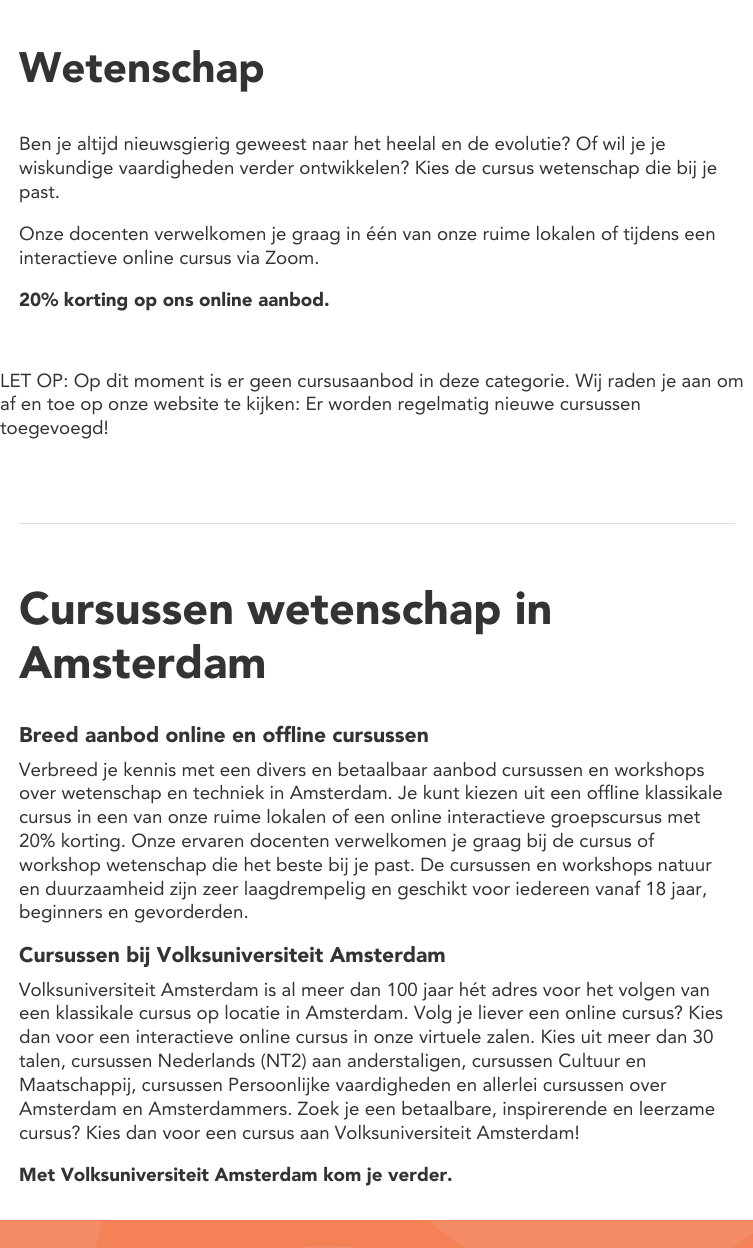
#include <cairo/cairo.h>
#include <math.h>
#include <stddef.h>


static void draw_image(cairo_t *cr, const char *path, double x, double y, double w, double h) {
  cairo_surface_t *image = cairo_image_surface_create_from_png(path);
  cairo_save(cr);
  cairo_set_source_surface(cr, image, x, y);
  cairo_rectangle(cr, x, y, w, h);
  cairo_fill(cr);
  cairo_restore(cr);
  cairo_surface_destroy(image);
}

static void draw(cairo_t *cr) {
  cairo_set_source_rgb(cr, 1, 1, 1);
  cairo_paint(cr);
  cairo_set_source_rgb(cr, 221 / 255.0, 221 / 255.0, 221 / 255.0);
  cairo_rectangle(cr, 19, 523, 716, 1);
  cairo_fill(cr);
  cairo_set_source_rgb(cr, 244 / 255.0, 130 / 255.0, 86 / 255.0);
  cairo_rectangle(cr, 0, 1220, 753, 28);
  cairo_fill(cr);
  draw_image(cr, "images/1.png", 0, 1221, 753, 27);
  cairo_select_font_face(cr, "Avenir", CAIRO_FONT_SLANT_NORMAL, CAIRO_FONT_WEIGHT_NORMAL);
  cairo_set_font_size(cr, 42.25);
  cairo_set_source_rgb(cr, 51 / 255.0, 51 / 255.0, 51 / 255.0);
  cairo_move_to(cr, 19, 82);
  cairo_show_text(cr, "Wetenschap");
  cairo_select_font_face(cr, "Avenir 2", CAIRO_FONT_SLANT_NORMAL, CAIRO_FONT_WEIGHT_NORMAL);
  cairo_set_font_size(cr, 18.75);
  cairo_move_to(cr, 19, 150);
  cairo_show_text(cr, "Ben je altijd nieuwsgierig geweest naar het heelal en de evolutie? Of wil je je");
  cairo_move_to(cr, 19, 174);
  cairo_show_text(cr, "wiskundige vaardigheden verder ontwikkelen? Kies de cursus wetenschap die bij je");
  cairo_move_to(cr, 19, 198);
  cairo_show_text(cr, "past.");
  cairo_move_to(cr, 19, 240);
  cairo_show_text(cr, "Onze docenten verwelkomen je graag in één van onze ruime lokalen of tijdens een");
  cairo_move_to(cr, 19, 264);
  cairo_show_text(cr, "interactieve online cursus via Zoom.");
  cairo_select_font_face(cr, "Avenir", CAIRO_FONT_SLANT_NORMAL, CAIRO_FONT_WEIGHT_NORMAL);
  cairo_move_to(cr, 19, 306);
  cairo_show_text(cr, "20% korting op ons online aanbod.");
  cairo_select_font_face(cr, "Avenir 2", CAIRO_FONT_SLANT_NORMAL, CAIRO_FONT_WEIGHT_NORMAL);
  cairo_move_to(cr, 0, 387);
  cairo_show_text(cr, "LET OP: Op dit moment is er geen cursusaanbod in deze categorie. Wij raden je aan om");
  cairo_move_to(cr, 0, 410);
  cairo_show_text(cr, "af en toe op onze website te kijken: Er worden regelmatig nieuwe cursussen");
  cairo_move_to(cr, 0, 434);
  cairo_show_text(cr, "toegevoegd!");
  cairo_select_font_face(cr, "Avenir", CAIRO_FONT_SLANT_NORMAL, CAIRO_FONT_WEIGHT_NORMAL);
  cairo_set_font_size(cr, 45);
  cairo_move_to(cr, 19, 624);
  cairo_show_text(cr, "Cursussen wetenschap in");
  cairo_move_to(cr, 19, 678);
  cairo_show_text(cr, "Amsterdam");
  cairo_set_font_size(cr, 21.1);
  cairo_move_to(cr, 19, 742);
  cairo_show_text(cr, "Breed aanbod online en offline cursussen");
  cairo_select_font_face(cr, "Avenir 2", CAIRO_FONT_SLANT_NORMAL, CAIRO_FONT_WEIGHT_NORMAL);
  cairo_set_font_size(cr, 18.75);
  cairo_move_to(cr, 19, 776);
  cairo_show_text(cr, "Verbreed je kennis met een divers en betaalbaar aanbod cursussen en workshops");
  cairo_move_to(cr, 19, 799);
  cairo_show_text(cr, "over wetenschap en techniek in Amsterdam. Je kunt kiezen uit een offline klassikale");
  cairo_move_to(cr, 19, 823);
  cairo_show_text(cr, "cursus in een van onze ruime lokalen of een online interactieve groepscursus met");
  cairo_move_to(cr, 19, 847);
  cairo_show_text(cr, "20% korting. Onze ervaren docenten verwelkomen je graag bij de cursus of");
  cairo_move_to(cr, 19, 871);
  cairo_show_text(cr, "workshop wetenschap die het beste bij je past. De cursussen en workshops natuur");
  cairo_move_to(cr, 19, 895);
  cairo_show_text(cr, "en duurzaamheid zijn zeer laagdrempelig en geschikt voor iedereen vanaf 18 jaar,");
  cairo_move_to(cr, 19, 918);
  cairo_show_text(cr, "beginners en gevorderden.");
  cairo_select_font_face(cr, "Avenir", CAIRO_FONT_SLANT_NORMAL, CAIRO_FONT_WEIGHT_NORMAL);
  cairo_set_font_size(cr, 21.1);
  cairo_move_to(cr, 19, 962);
  cairo_show_text(cr, "Cursussen bij Volksuniversiteit Amsterdam");
  cairo_select_font_face(cr, "Avenir 2", CAIRO_FONT_SLANT_NORMAL, CAIRO_FONT_WEIGHT_NORMAL);
  cairo_set_font_size(cr, 18.75);
  cairo_move_to(cr, 19, 996);
  cairo_show_text(cr, "Volksuniversiteit Amsterdam is al meer dan 100 jaar hét adres voor het volgen van");
  cairo_move_to(cr, 19, 1019);
  cairo_show_text(cr, "een klassikale cursus op locatie in Amsterdam. Volg je liever een online cursus? Kies");
  cairo_move_to(cr, 19, 1043);
  cairo_show_text(cr, "dan voor een interactieve online cursus in onze virtuele zalen. Kies uit meer dan 30");
  cairo_move_to(cr, 19, 1067);
  cairo_show_text(cr, "talen, cursussen Nederlands (NT2) aan anderstaligen, cursussen Cultuur en");
  cairo_move_to(cr, 19, 1091);
  cairo_show_text(cr, "Maatschappij, cursussen Persoonlijke vaardigheden en allerlei cursussen over");
  cairo_move_to(cr, 19, 1115);
  cairo_show_text(cr, "Amsterdam en Amsterdammers. Zoek je een betaalbare, inspirerende en leerzame");
  cairo_move_to(cr, 19, 1139);
  cairo_show_text(cr, "cursus? Kies dan voor een cursus aan Volksuniversiteit Amsterdam!");
  cairo_select_font_face(cr, "Avenir", CAIRO_FONT_SLANT_NORMAL, CAIRO_FONT_WEIGHT_NORMAL);
  cairo_move_to(cr, 19, 1181);
  cairo_show_text(cr, "Met Volksuniversiteit Amsterdam kom je verder.");
}

int main(void) {
  cairo_surface_t *surface = cairo_image_surface_create(CAIRO_FORMAT_RGB24, 753, 1248);
  cairo_t *cr = cairo_create(surface);
  cairo_font_options_t *options = cairo_font_options_create();
  cairo_font_options_set_hint_metrics(options, CAIRO_HINT_METRICS_OFF);
  cairo_font_options_set_hint_style(options, CAIRO_HINT_STYLE_NONE);
  cairo_set_font_options(cr, options);
  cairo_set_miter_limit(cr, 4);
  draw(cr);
  cairo_surface_write_to_png(surface, "out.png");
  cairo_font_options_destroy(options);
  cairo_destroy(cr);
  cairo_surface_destroy(surface);
  return 0;
}
